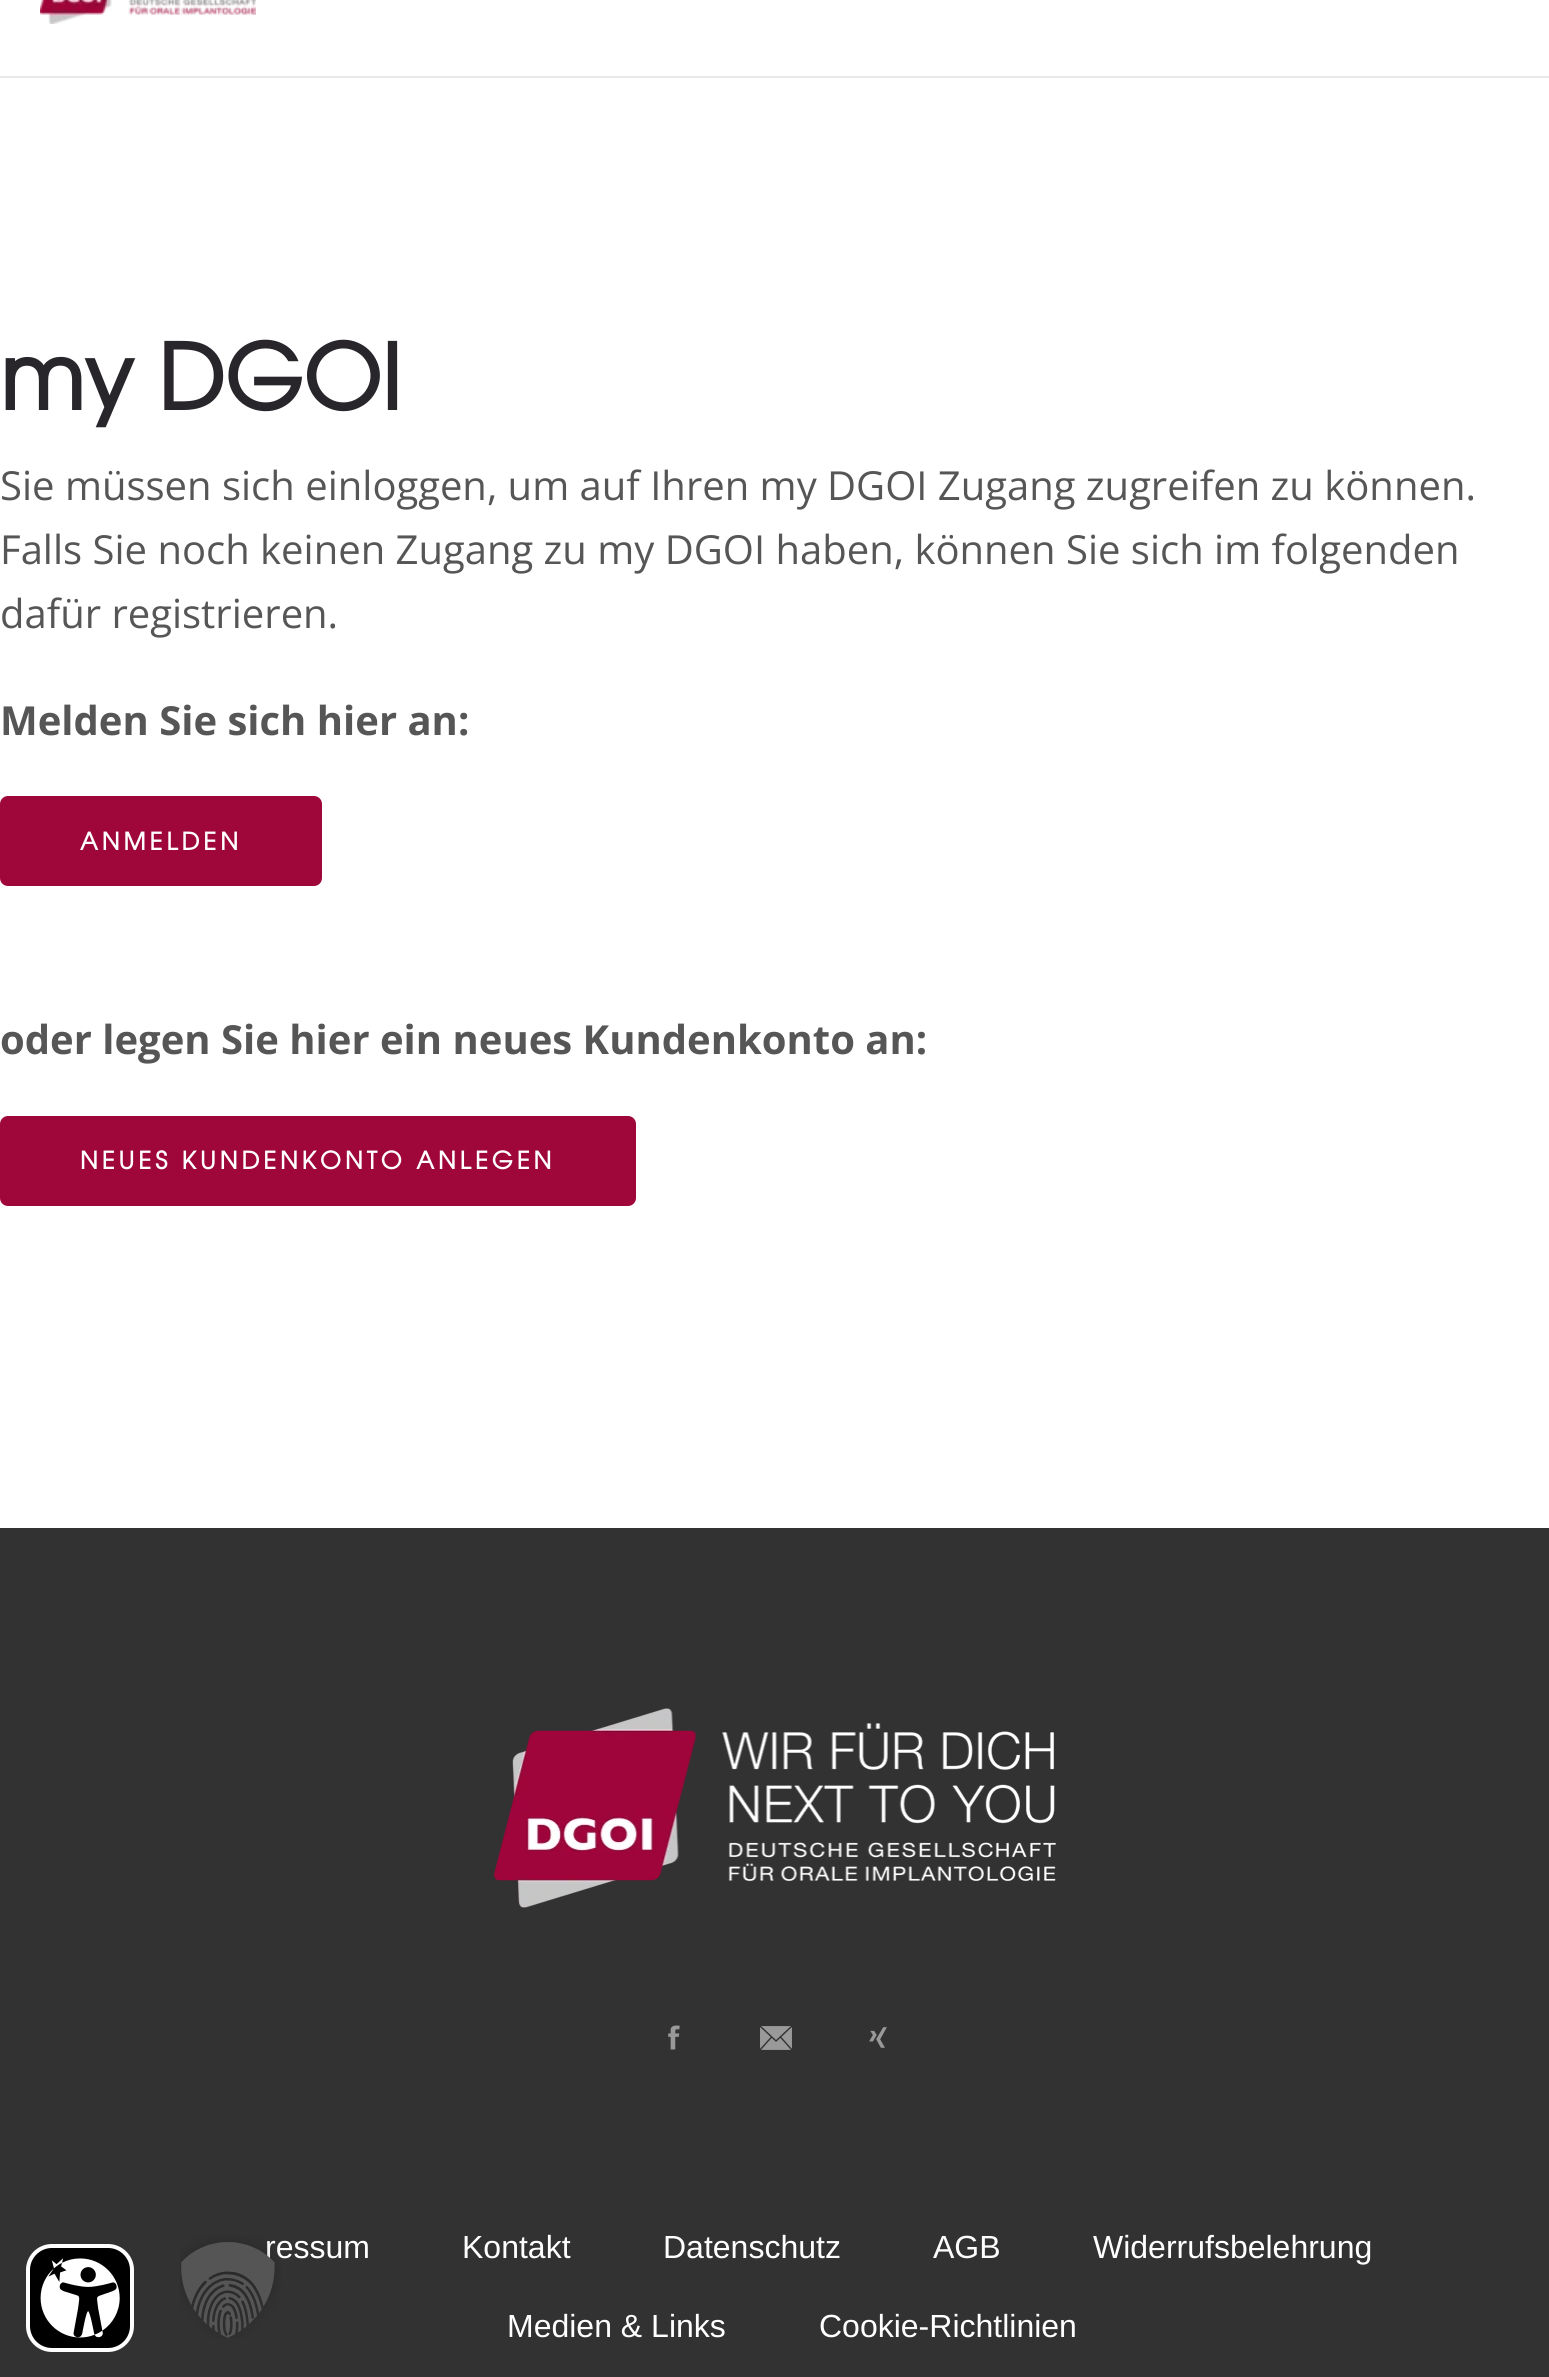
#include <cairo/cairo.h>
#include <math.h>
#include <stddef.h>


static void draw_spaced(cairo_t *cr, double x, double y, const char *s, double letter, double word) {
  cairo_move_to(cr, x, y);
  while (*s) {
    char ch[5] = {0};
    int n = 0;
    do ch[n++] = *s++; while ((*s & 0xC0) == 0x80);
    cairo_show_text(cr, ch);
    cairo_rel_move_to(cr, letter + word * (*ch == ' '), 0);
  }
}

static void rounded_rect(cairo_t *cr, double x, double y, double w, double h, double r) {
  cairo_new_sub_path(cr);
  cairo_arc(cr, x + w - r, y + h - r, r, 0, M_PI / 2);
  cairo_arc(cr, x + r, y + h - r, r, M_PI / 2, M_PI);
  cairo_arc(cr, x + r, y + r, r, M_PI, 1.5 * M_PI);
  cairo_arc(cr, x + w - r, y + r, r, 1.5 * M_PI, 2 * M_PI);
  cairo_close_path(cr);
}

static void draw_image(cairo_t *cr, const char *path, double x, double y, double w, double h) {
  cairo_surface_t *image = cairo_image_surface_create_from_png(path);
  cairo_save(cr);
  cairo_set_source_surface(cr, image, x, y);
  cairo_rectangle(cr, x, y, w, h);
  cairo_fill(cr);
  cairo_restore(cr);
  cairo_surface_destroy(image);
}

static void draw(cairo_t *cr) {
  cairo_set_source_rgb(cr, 1, 1, 1);
  cairo_paint(cr);
  cairo_set_source_rgb(cr, 234 / 255.0, 233 / 255.0, 234 / 255.0);
  cairo_rectangle(cr, 0, 76, 1549, 2);
  cairo_fill(cr);
  draw_image(cr, "images/1.png", 40, 0, 216, 24);
  cairo_set_source_rgb(cr, 159 / 255.0, 6 / 255.0, 58 / 255.0);
  rounded_rect(cr, 0, 796, 322, 90, 8);
  cairo_fill(cr);
  rounded_rect(cr, 0, 1116, 636, 90, 8);
  cairo_fill(cr);
  cairo_set_source_rgb(cr, 50 / 255.0, 50 / 255.0, 50 / 255.0);
  cairo_rectangle(cr, 0, 1528, 1549, 849);
  cairo_fill(cr);
  draw_image(cr, "images/2.png", 494, 1708, 562, 200);
  draw_image(cr, "images/3.png", 668, 2025, 12, 25);
  draw_image(cr, "images/4.png", 760, 2026, 32, 24);
  draw_image(cr, "images/5.png", 869, 2027, 18, 21);
  cairo_set_source_rgb(cr, 0, 0, 0);
  rounded_rect(cr, 28, 2246, 104, 104, 24);
  cairo_fill_preserve(cr);
  cairo_set_source_rgb(cr, 1, 1, 1);
  cairo_set_line_width(cr, 4);
  cairo_stroke(cr);
  draw_image(cr, "images/6.png", 40, 2258, 80, 80);
  cairo_select_font_face(cr, "TeX Gyre Adventor", CAIRO_FONT_SLANT_NORMAL, CAIRO_FONT_WEIGHT_BOLD);
  cairo_set_font_size(cr, 90);
  cairo_set_source_rgb(cr, 40 / 255.0, 38 / 255.0, 43 / 255.0);
  cairo_move_to(cr, 0, 410);
  cairo_show_text(cr, "my DGOI");
  cairo_select_font_face(cr, "Open Sans", CAIRO_FONT_SLANT_NORMAL, CAIRO_FONT_WEIGHT_NORMAL);
  cairo_set_font_size(cr, 40);
  cairo_set_source_rgb(cr, 86 / 255.0, 86 / 255.0, 86 / 255.0);
  cairo_move_to(cr, 0, 500);
  cairo_show_text(cr, "Sie müssen sich einloggen, um auf Ihren my DGOI Zugang zugreifen zu können.");
  cairo_move_to(cr, 0, 564);
  cairo_show_text(cr, "Falls Sie noch keinen Zugang zu my DGOI haben, können Sie sich im folgenden");
  cairo_move_to(cr, 0, 628);
  cairo_show_text(cr, "dafür registrieren.");
  cairo_select_font_face(cr, "Open Sans", CAIRO_FONT_SLANT_NORMAL, CAIRO_FONT_WEIGHT_BOLD);
  cairo_move_to(cr, 0, 735);
  cairo_show_text(cr, "Melden Sie sich hier an:");
  cairo_select_font_face(cr, "TeX Gyre Adventor", CAIRO_FONT_SLANT_NORMAL, CAIRO_FONT_WEIGHT_BOLD);
  cairo_set_font_size(cr, 24);
  cairo_set_source_rgb(cr, 1, 1, 1);
  draw_spaced(cr, 80, 850, "ANMELDEN", 4, 0);
  cairo_select_font_face(cr, "Open Sans", CAIRO_FONT_SLANT_NORMAL, CAIRO_FONT_WEIGHT_BOLD);
  cairo_set_font_size(cr, 40);
  cairo_set_source_rgb(cr, 86 / 255.0, 86 / 255.0, 86 / 255.0);
  cairo_move_to(cr, 0, 1054);
  cairo_show_text(cr, "oder legen Sie hier ein neues Kundenkonto an:");
  cairo_select_font_face(cr, "TeX Gyre Adventor", CAIRO_FONT_SLANT_NORMAL, CAIRO_FONT_WEIGHT_BOLD);
  cairo_set_font_size(cr, 24);
  cairo_set_source_rgb(cr, 1, 1, 1);
  draw_spaced(cr, 80, 1169, "NEUES KUNDENKONTO ANLEGEN", 4, 0);
  cairo_select_font_face(cr, "Liberation Sans", CAIRO_FONT_SLANT_NORMAL, CAIRO_FONT_WEIGHT_NORMAL);
  cairo_set_font_size(cr, 32);
  cairo_move_to(cr, 265, 2258);
  cairo_show_text(cr, "ressum");
  cairo_move_to(cr, 462, 2258);
  cairo_show_text(cr, "Kontakt");
  cairo_move_to(cr, 663, 2258);
  cairo_show_text(cr, "Datenschutz");
  cairo_move_to(cr, 933, 2258);
  cairo_show_text(cr, "AGB");
  cairo_move_to(cr, 1093, 2258);
  cairo_show_text(cr, "Widerrufsbelehrung");
  cairo_move_to(cr, 507, 2337);
  cairo_show_text(cr, "Medien & Links");
  cairo_move_to(cr, 819, 2337);
  cairo_show_text(cr, "Cookie-Richtlinien");
  draw_image(cr, "images/7.png", 180, 2236, 101, 102);
}

int main(void) {
  cairo_surface_t *surface = cairo_image_surface_create(CAIRO_FORMAT_RGB24, 1549, 2377);
  cairo_t *cr = cairo_create(surface);
  cairo_font_options_t *options = cairo_font_options_create();
  cairo_font_options_set_hint_metrics(options, CAIRO_HINT_METRICS_OFF);
  cairo_font_options_set_hint_style(options, CAIRO_HINT_STYLE_NONE);
  cairo_set_font_options(cr, options);
  cairo_set_miter_limit(cr, 4);
  draw(cr);
  cairo_surface_write_to_png(surface, "out.png");
  cairo_font_options_destroy(options);
  cairo_destroy(cr);
  cairo_surface_destroy(surface);
  return 0;
}
